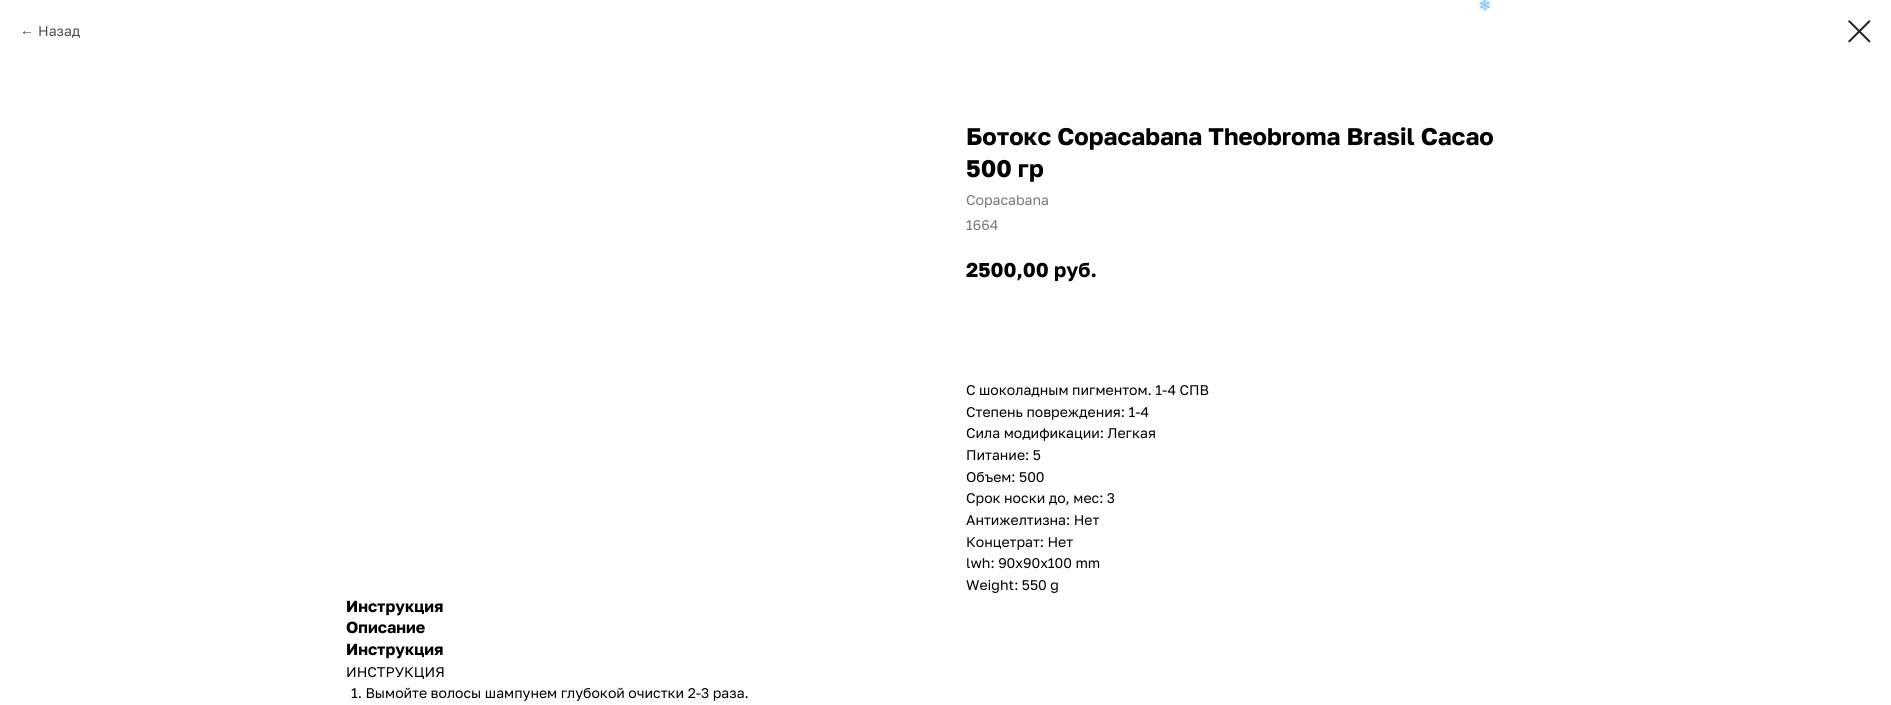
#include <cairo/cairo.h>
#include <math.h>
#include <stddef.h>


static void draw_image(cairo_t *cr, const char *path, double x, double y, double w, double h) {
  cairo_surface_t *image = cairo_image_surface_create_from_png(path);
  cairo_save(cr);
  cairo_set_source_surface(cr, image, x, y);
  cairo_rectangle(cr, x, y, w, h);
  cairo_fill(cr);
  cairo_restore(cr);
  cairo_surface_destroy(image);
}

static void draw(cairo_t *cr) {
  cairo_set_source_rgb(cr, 1, 1, 1);
  cairo_paint(cr);
  draw_image(cr, "images/1.png", 1477, 0, 15, 13);
  draw_image(cr, "images/2.png", 1848, 20, 23, 23);
  cairo_select_font_face(cr, "Liberation Sans", CAIRO_FONT_SLANT_NORMAL, CAIRO_FONT_WEIGHT_NORMAL);
  cairo_set_font_size(cr, 14);
  cairo_set_source_rgb(cr, 79 / 255.0, 76 / 255.0, 77 / 255.0);
  cairo_move_to(cr, 20, 35);
  cairo_show_text(cr, "←");
  cairo_select_font_face(cr, "Golos Text", CAIRO_FONT_SLANT_NORMAL, CAIRO_FONT_WEIGHT_NORMAL);
  cairo_move_to(cr, 38, 36);
  cairo_show_text(cr, "Назад");
  cairo_select_font_face(cr, "Golos Text", CAIRO_FONT_SLANT_NORMAL, CAIRO_FONT_WEIGHT_BOLD);
  cairo_set_font_size(cr, 24);
  cairo_set_source_rgb(cr, 0, 0, 0);
  cairo_move_to(cr, 966, 145);
  cairo_show_text(cr, "Ботокс Copacabana Theobroma Brasil Cacao");
  cairo_move_to(cr, 966, 177);
  cairo_show_text(cr, "500 гр");
  cairo_select_font_face(cr, "Golos Text", CAIRO_FONT_SLANT_NORMAL, CAIRO_FONT_WEIGHT_NORMAL);
  cairo_set_font_size(cr, 14);
  cairo_set_source_rgb(cr, 119 / 255.0, 119 / 255.0, 119 / 255.0);
  cairo_move_to(cr, 966, 205);
  cairo_show_text(cr, "Copacabana");
  cairo_move_to(cr, 966, 230);
  cairo_show_text(cr, "1664");
  cairo_select_font_face(cr, "Golos Text", CAIRO_FONT_SLANT_NORMAL, CAIRO_FONT_WEIGHT_BOLD);
  cairo_set_font_size(cr, 20);
  cairo_set_source_rgb(cr, 0, 0, 0);
  cairo_move_to(cr, 966, 277);
  cairo_show_text(cr, "2500,00");
  cairo_move_to(cr, 1054, 277);
  cairo_show_text(cr, "руб.");
  cairo_select_font_face(cr, "Golos Text", CAIRO_FONT_SLANT_NORMAL, CAIRO_FONT_WEIGHT_NORMAL);
  cairo_set_font_size(cr, 14);
  cairo_move_to(cr, 966, 395);
  cairo_show_text(cr, "С шоколадным пигментом. 1-4 СПВ");
  cairo_move_to(cr, 966, 417);
  cairo_show_text(cr, "Степень повреждения: 1-4");
  cairo_move_to(cr, 966, 438);
  cairo_show_text(cr, "Сила модификации: Легкая");
  cairo_move_to(cr, 966, 460);
  cairo_show_text(cr, "Питание: 5");
  cairo_move_to(cr, 966, 482);
  cairo_show_text(cr, "Объем: 500");
  cairo_move_to(cr, 966, 503);
  cairo_show_text(cr, "Срок носки до, мес: 3");
  cairo_move_to(cr, 966, 525);
  cairo_show_text(cr, "Антижелтизна: Нет");
  cairo_move_to(cr, 966, 547);
  cairo_show_text(cr, "Концетрат: Нет");
  cairo_move_to(cr, 966, 568);
  cairo_show_text(cr, "lwh: 90x90x100 mm");
  cairo_move_to(cr, 966, 590);
  cairo_show_text(cr, "Weight: 550 g");
  cairo_select_font_face(cr, "Golos Text", CAIRO_FONT_SLANT_NORMAL, CAIRO_FONT_WEIGHT_BOLD);
  cairo_set_font_size(cr, 16);
  cairo_move_to(cr, 346, 612);
  cairo_show_text(cr, "Инструкция");
  cairo_move_to(cr, 346, 633);
  cairo_show_text(cr, "Описание");
  cairo_move_to(cr, 346, 655);
  cairo_show_text(cr, "Инструкция");
  cairo_select_font_face(cr, "Golos Text", CAIRO_FONT_SLANT_NORMAL, CAIRO_FONT_WEIGHT_NORMAL);
  cairo_set_font_size(cr, 14);
  cairo_move_to(cr, 346, 677);
  cairo_show_text(cr, "ИНСТРУКЦИЯ");
  cairo_move_to(cr, 351, 698);
  cairo_show_text(cr, "1. Вымойте волосы шампунем глубокой очистки 2-3 раза.");
}

int main(void) {
  cairo_surface_t *surface = cairo_image_surface_create(CAIRO_FORMAT_RGB24, 1891, 705);
  cairo_t *cr = cairo_create(surface);
  cairo_font_options_t *options = cairo_font_options_create();
  cairo_font_options_set_hint_metrics(options, CAIRO_HINT_METRICS_OFF);
  cairo_font_options_set_hint_style(options, CAIRO_HINT_STYLE_NONE);
  cairo_set_font_options(cr, options);
  cairo_set_miter_limit(cr, 4);
  draw(cr);
  cairo_surface_write_to_png(surface, "out.png");
  cairo_font_options_destroy(options);
  cairo_destroy(cr);
  cairo_surface_destroy(surface);
  return 0;
}
